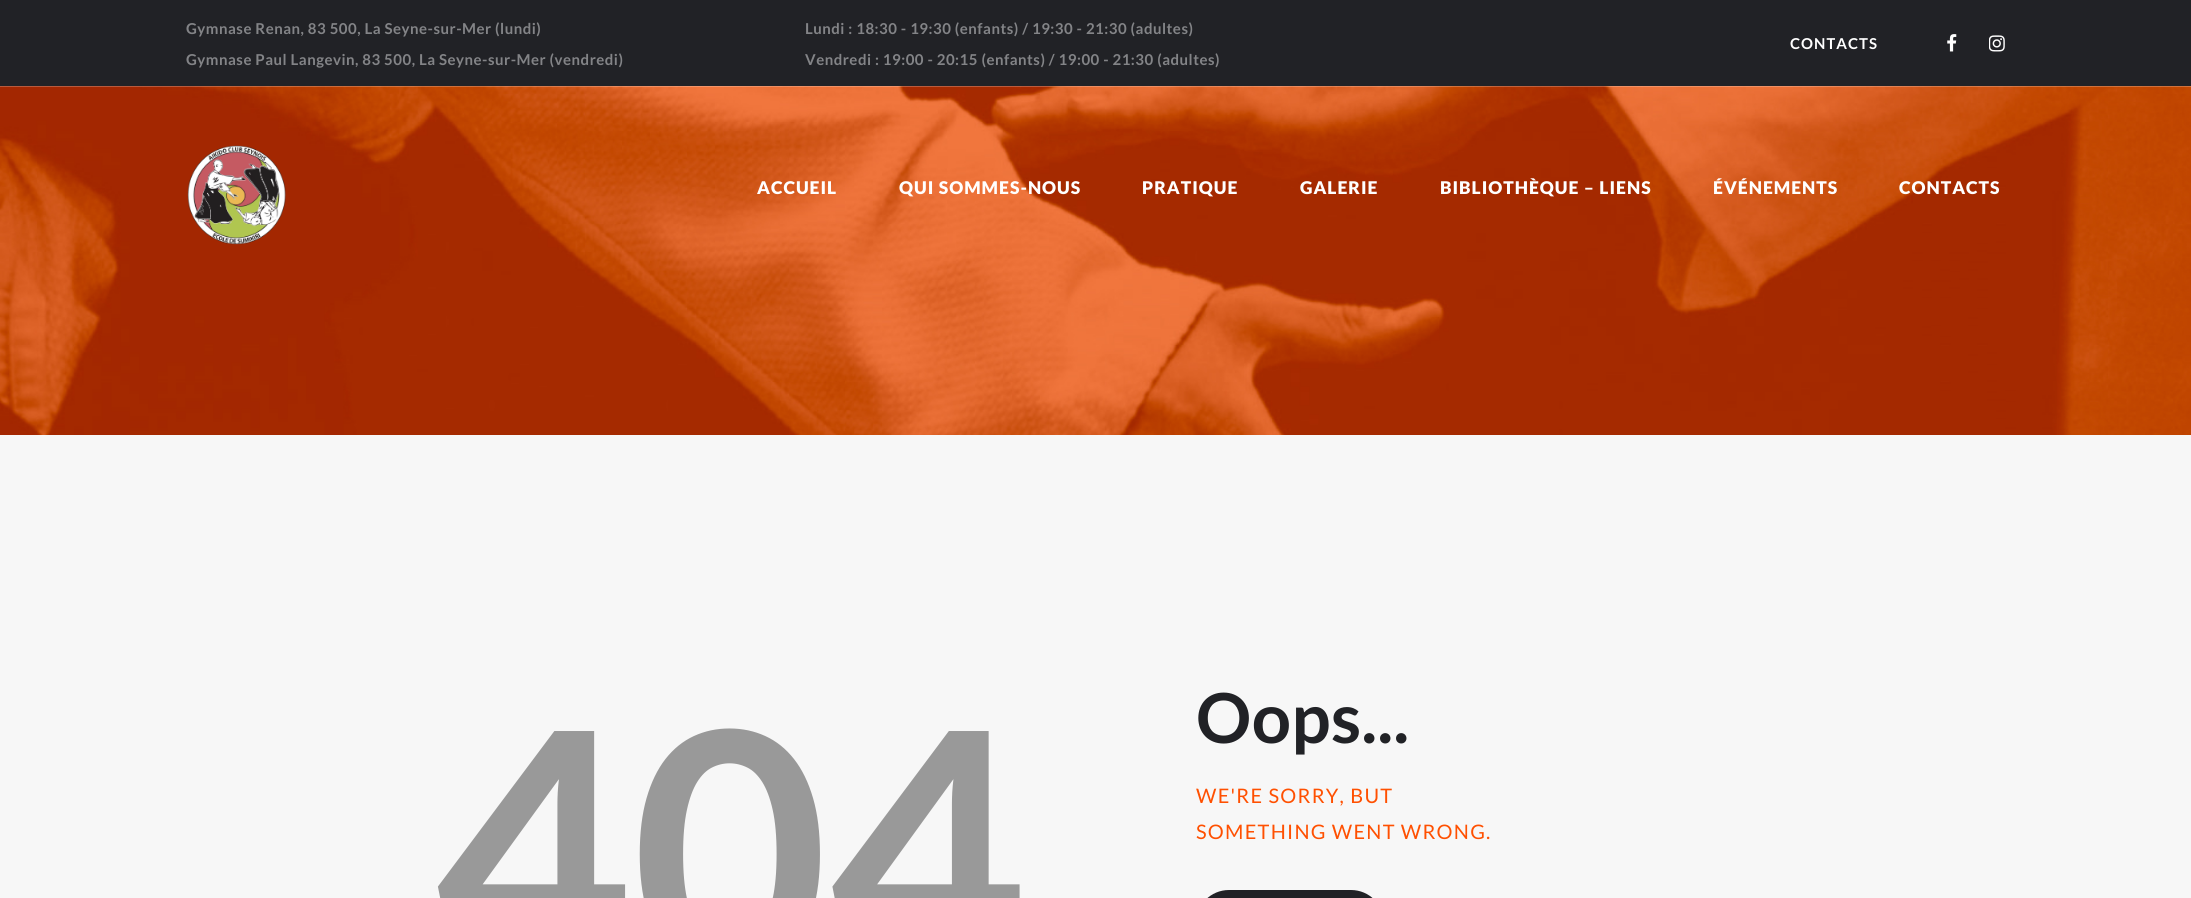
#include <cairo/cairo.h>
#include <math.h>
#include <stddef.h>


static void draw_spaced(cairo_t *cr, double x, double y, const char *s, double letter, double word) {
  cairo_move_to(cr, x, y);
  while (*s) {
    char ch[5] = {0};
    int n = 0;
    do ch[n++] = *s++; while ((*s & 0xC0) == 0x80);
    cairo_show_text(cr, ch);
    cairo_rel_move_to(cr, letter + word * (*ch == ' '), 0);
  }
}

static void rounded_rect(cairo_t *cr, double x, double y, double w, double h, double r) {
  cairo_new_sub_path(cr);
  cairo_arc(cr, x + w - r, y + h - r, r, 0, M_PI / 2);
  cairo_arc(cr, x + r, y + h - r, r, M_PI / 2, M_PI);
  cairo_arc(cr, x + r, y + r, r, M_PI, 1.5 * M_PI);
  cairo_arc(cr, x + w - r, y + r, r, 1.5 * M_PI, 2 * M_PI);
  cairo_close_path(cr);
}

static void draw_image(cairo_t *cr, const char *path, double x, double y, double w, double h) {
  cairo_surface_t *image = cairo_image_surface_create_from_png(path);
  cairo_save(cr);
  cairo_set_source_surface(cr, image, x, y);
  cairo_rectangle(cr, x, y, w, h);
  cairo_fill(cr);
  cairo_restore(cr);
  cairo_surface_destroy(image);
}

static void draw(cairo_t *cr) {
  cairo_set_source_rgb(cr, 247 / 255.0, 247 / 255.0, 247 / 255.0);
  cairo_paint(cr);
  cairo_set_source_rgb(cr, 33 / 255.0, 34 / 255.0, 38 / 255.0);
  cairo_rectangle(cr, 0, 0, 2191, 86);
  cairo_fill(cr);
  draw_image(cr, "images/1.png", 1947, 34, 10, 18);
  draw_image(cr, "images/2.png", 1989, 35, 16, 17);
  draw_image(cr, "images/3.png", 0, 86, 2191, 349);
  draw_image(cr, "images/4.png", 187, 145, 99, 100);
  rounded_rect(cr, 1196, 890, 188, 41, 33);
  cairo_fill(cr);
  cairo_select_font_face(cr, "Lato", CAIRO_FONT_SLANT_NORMAL, CAIRO_FONT_WEIGHT_BOLD);
  cairo_set_font_size(cr, 15);
  cairo_set_source_rgb(cr, 131 / 255.0, 132 / 255.0, 135 / 255.0);
  draw_spaced(cr, 186, 34, "Gymnase Renan, 83 500, La Seyne-sur-Mer (lundi)", 0.5, 0);
  draw_spaced(cr, 186, 65, "Gymnase Paul Langevin, 83 500, La Seyne-sur-Mer (vendredi)", 0.5, 0);
  draw_spaced(cr, 805, 34, "Lundi : 18:30 - 19:30 (enfants) / 19:30 - 21:30 (adultes)", 0.5, 0);
  draw_spaced(cr, 805, 65, "Vendredi : 19:00 - 20:15 (enfants) / 19:00 - 21:30 (adultes)", 0.5, 0);
  cairo_save(cr);
  rounded_rect(cr, 1790, 31, 88, 24, 12);
  cairo_clip(cr);
  cairo_set_source_rgb(cr, 1, 1, 1);
  draw_spaced(cr, 1790, 49, "CONTACTS", 1, 0);
  cairo_restore(cr);
  cairo_select_font_face(cr, "Lato Black", CAIRO_FONT_SLANT_NORMAL, CAIRO_FONT_WEIGHT_NORMAL);
  cairo_set_font_size(cr, 17.5);
  cairo_set_source_rgb(cr, 1, 1, 1);
  draw_spaced(cr, 757, 194, "ACCUEIL", 1, 0);
  draw_spaced(cr, 899, 194, "QUI SOMMES-NOUS", 1, 0);
  draw_spaced(cr, 1142, 194, "PRATIQUE", 1, 0);
  draw_spaced(cr, 1300, 194, "GALERIE", 1, 0);
  draw_spaced(cr, 1440, 194, "BIBLIOTHÈQUE – LIENS", 1, 0);
  draw_spaced(cr, 1713, 194, "ÉVÉNEMENTS", 1, 0);
  draw_spaced(cr, 1899, 194, "CONTACTS", 1, 0);
  cairo_select_font_face(cr, "Lato", CAIRO_FONT_SLANT_NORMAL, CAIRO_FONT_WEIGHT_BOLD);
  cairo_set_font_size(cr, 340);
  cairo_set_source_rgb(cr, 153 / 255.0, 153 / 255.0, 153 / 255.0);
  cairo_move_to(cr, 434, 977);
  cairo_show_text(cr, "404");
  cairo_set_font_size(cr, 69);
  cairo_set_source_rgb(cr, 33 / 255.0, 34 / 255.0, 38 / 255.0);
  draw_spaced(cr, 1196, 743, "Oops...", 0.5, 0);
  cairo_select_font_face(cr, "Lato", CAIRO_FONT_SLANT_NORMAL, CAIRO_FONT_WEIGHT_NORMAL);
  cairo_set_font_size(cr, 20);
  cairo_set_source_rgb(cr, 1, 80 / 255.0, 1 / 255.0);
  draw_spaced(cr, 1196, 803, "WE'RE SORRY, BUT", 1.25, 0);
  draw_spaced(cr, 1196, 839, "SOMETHING WENT WRONG.", 1.25, 0);
}

int main(void) {
  cairo_surface_t *surface = cairo_image_surface_create(CAIRO_FORMAT_RGB24, 2191, 898);
  cairo_t *cr = cairo_create(surface);
  cairo_font_options_t *options = cairo_font_options_create();
  cairo_font_options_set_hint_metrics(options, CAIRO_HINT_METRICS_OFF);
  cairo_font_options_set_hint_style(options, CAIRO_HINT_STYLE_NONE);
  cairo_set_font_options(cr, options);
  cairo_set_miter_limit(cr, 4);
  draw(cr);
  cairo_surface_write_to_png(surface, "out.png");
  cairo_font_options_destroy(options);
  cairo_destroy(cr);
  cairo_surface_destroy(surface);
  return 0;
}
